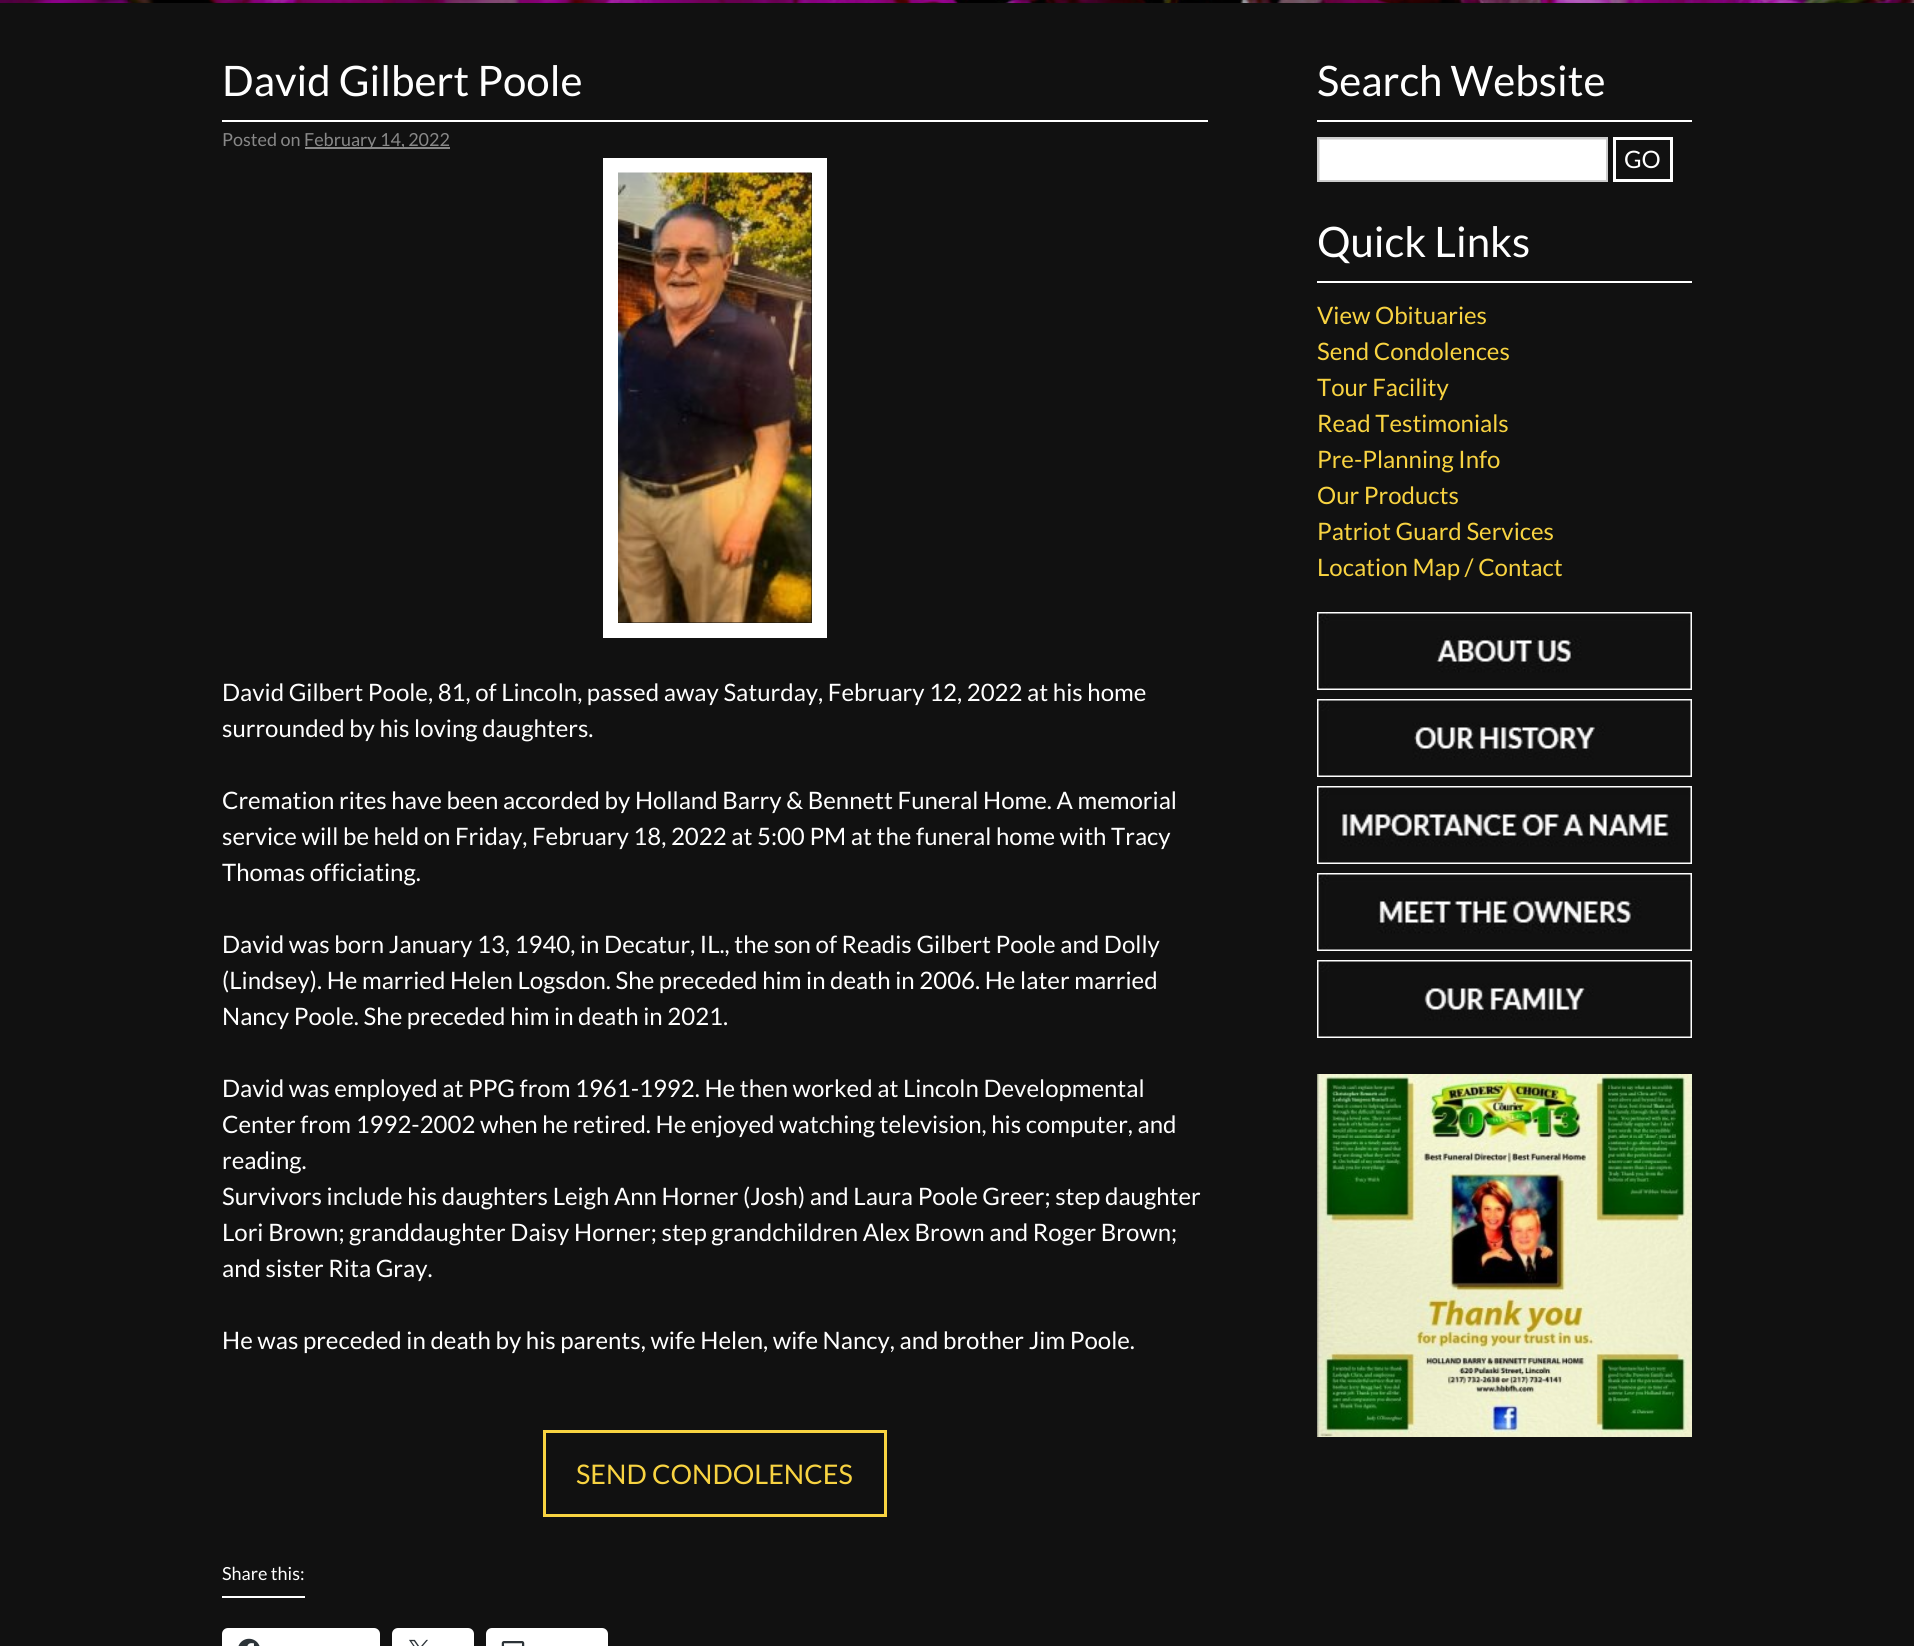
#include <cairo/cairo.h>
#include <math.h>
#include <stddef.h>


static void rounded_rect(cairo_t *cr, double x, double y, double w, double h, double r) {
  cairo_new_sub_path(cr);
  cairo_arc(cr, x + w - r, y + h - r, r, 0, M_PI / 2);
  cairo_arc(cr, x + r, y + h - r, r, M_PI / 2, M_PI);
  cairo_arc(cr, x + r, y + r, r, M_PI, 1.5 * M_PI);
  cairo_arc(cr, x + w - r, y + r, r, 1.5 * M_PI, 2 * M_PI);
  cairo_close_path(cr);
}

static void draw_image(cairo_t *cr, const char *path, double x, double y, double w, double h) {
  cairo_surface_t *image = cairo_image_surface_create_from_png(path);
  cairo_save(cr);
  cairo_set_source_surface(cr, image, x, y);
  cairo_rectangle(cr, x, y, w, h);
  cairo_fill(cr);
  cairo_restore(cr);
  cairo_surface_destroy(image);
}

static void draw(cairo_t *cr) {
  cairo_set_source_rgb(cr, 17 / 255.0, 17 / 255.0, 17 / 255.0);
  cairo_paint(cr);
  draw_image(cr, "images/1.png", 0, 0, 1914, 3);
  cairo_set_source_rgb(cr, 1, 1, 1);
  cairo_rectangle(cr, 222, 120, 986, 2);
  cairo_fill(cr);
  cairo_set_source_rgb(cr, 136 / 255.0, 136 / 255.0, 136 / 255.0);
  cairo_rectangle(cr, 305, 147, 145, 2);
  cairo_fill(cr);
  cairo_rectangle(cr, 610.5, 165.5, 209, 465);
  cairo_set_source_rgb(cr, 1, 1, 1);
  cairo_set_line_width(cr, 15);
  cairo_stroke(cr);
  draw_image(cr, "images/2.png", 618, 172, 194, 451);
  cairo_rectangle(cr, 544.5, 1431.5, 341, 84);
  cairo_set_source_rgb(cr, 248 / 255.0, 211 / 255.0, 65 / 255.0);
  cairo_set_line_width(cr, 3);
  cairo_stroke(cr);
  cairo_set_source_rgb(cr, 1, 1, 1);
  cairo_rectangle(cr, 222, 1596, 83, 2);
  cairo_fill(cr);
  rounded_rect(cr, 222, 1628, 158, 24, 6);
  cairo_fill(cr);
  draw_image(cr, "images/3.png", 238, 1638, 22, 8);
  rounded_rect(cr, 392, 1628, 82, 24, 6);
  cairo_fill(cr);
  draw_image(cr, "images/4.png", 409, 1639, 19, 7);
  rounded_rect(cr, 486, 1628, 122, 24, 6);
  cairo_fill(cr);
  draw_image(cr, "images/5.png", 501, 1641, 24, 5);
  cairo_rectangle(cr, 1317, 120, 375, 2);
  cairo_fill(cr);
  cairo_rectangle(cr, 1320, 140, 286, 40);
  cairo_fill(cr);
  cairo_save(cr);
  cairo_rectangle(cr, 1319, 138, 288, 42);
  cairo_clip(cr);
  cairo_set_source_rgb(cr, 230 / 255.0, 230 / 255.0, 230 / 255.0);
  cairo_set_fill_rule(cr, CAIRO_FILL_RULE_EVEN_ODD);
  cairo_new_path(cr);
  cairo_move_to(cr, 1170, -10);
  cairo_line_to(cr, 1755, -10);
  cairo_line_to(cr, 1755, 328);
  cairo_line_to(cr, 1170, 328);
  cairo_close_path(cr);
  cairo_move_to(cr, 1320, 140);
  cairo_line_to(cr, 1608, 140);
  cairo_line_to(cr, 1608, 182);
  cairo_line_to(cr, 1320, 182);
  cairo_close_path(cr);
  cairo_fill(cr);
  cairo_restore(cr);
  cairo_rectangle(cr, 1318, 138, 289, 43);
  cairo_set_source_rgb(cr, 204 / 255.0, 204 / 255.0, 204 / 255.0);
  cairo_set_line_width(cr, 2);
  cairo_stroke(cr);
  cairo_rectangle(cr, 1614.5, 138.5, 57, 42);
  cairo_set_source_rgb(cr, 1, 1, 1);
  cairo_set_line_width(cr, 3);
  cairo_stroke(cr);
  cairo_rectangle(cr, 1317, 281, 375, 2);
  cairo_fill(cr);
  draw_image(cr, "images/6.png", 1317, 612, 375, 78);
  draw_image(cr, "images/7.png", 1317, 699, 375, 78);
  draw_image(cr, "images/8.png", 1317, 786, 375, 78);
  draw_image(cr, "images/9.png", 1317, 873, 375, 78);
  draw_image(cr, "images/10.png", 1317, 960, 375, 78);
  draw_image(cr, "images/11.png", 1317, 1074, 375, 363);
  cairo_select_font_face(cr, "Lato", CAIRO_FONT_SLANT_NORMAL, CAIRO_FONT_WEIGHT_NORMAL);
  cairo_set_font_size(cr, 42);
  cairo_move_to(cr, 222, 96);
  cairo_show_text(cr, "David Gilbert Poole");
  cairo_set_font_size(cr, 18);
  cairo_set_source_rgb(cr, 136 / 255.0, 136 / 255.0, 136 / 255.0);
  cairo_move_to(cr, 222, 146);
  cairo_show_text(cr, "Posted on");
  cairo_move_to(cr, 304, 146);
  cairo_show_text(cr, "February 14, 2022");
  cairo_set_font_size(cr, 24);
  cairo_set_source_rgb(cr, 1, 1, 1);
  cairo_move_to(cr, 222, 701);
  cairo_show_text(cr, "David Gilbert Poole, 81, of Lincoln, passed away Saturday, February 12, 2022 at his home");
  cairo_move_to(cr, 222, 737);
  cairo_show_text(cr, "surrounded by his loving daughters.");
  cairo_move_to(cr, 222, 809);
  cairo_show_text(cr, "Cremation rites have been accorded by Holland Barry & Bennett Funeral Home. A memorial");
  cairo_move_to(cr, 222, 845);
  cairo_show_text(cr, "service will be held on Friday, February 18, 2022 at 5:00 PM at the funeral home with Tracy");
  cairo_move_to(cr, 222, 881);
  cairo_show_text(cr, "Thomas officiating.");
  cairo_move_to(cr, 222, 953);
  cairo_show_text(cr, "David was born January 13, 1940, in Decatur, IL., the son of Readis Gilbert Poole and Dolly");
  cairo_move_to(cr, 222, 989);
  cairo_show_text(cr, "(Lindsey). He married Helen Logsdon. She preceded him in death in 2006. He later married");
  cairo_move_to(cr, 222, 1025);
  cairo_show_text(cr, "Nancy Poole. She preceded him in death in 2021.");
  cairo_move_to(cr, 222, 1097);
  cairo_show_text(cr, "David was employed at PPG from 1961-1992. He then worked at Lincoln Developmental");
  cairo_move_to(cr, 222, 1133);
  cairo_show_text(cr, "Center from 1992-2002 when he retired. He enjoyed watching television, his computer, and");
  cairo_move_to(cr, 222, 1169);
  cairo_show_text(cr, "reading.");
  cairo_move_to(cr, 222, 1205);
  cairo_show_text(cr, "Survivors include his daughters Leigh Ann Horner (Josh) and Laura Poole Greer; step daughter");
  cairo_move_to(cr, 222, 1241);
  cairo_show_text(cr, "Lori Brown; granddaughter Daisy Horner; step grandchildren Alex Brown and Roger Brown;");
  cairo_move_to(cr, 222, 1277);
  cairo_show_text(cr, "and sister Rita Gray.");
  cairo_move_to(cr, 222, 1349);
  cairo_show_text(cr, "He was preceded in death by his parents, wife Helen, wife Nancy, and brother Jim Poole.");
  cairo_set_font_size(cr, 27);
  cairo_set_source_rgb(cr, 248 / 255.0, 211 / 255.0, 65 / 255.0);
  cairo_move_to(cr, 576, 1484);
  cairo_show_text(cr, "SEND CONDOLENCES");
  cairo_set_font_size(cr, 18);
  cairo_set_source_rgb(cr, 1, 1, 1);
  cairo_move_to(cr, 222, 1580);
  cairo_show_text(cr, "Share this:");
  cairo_set_font_size(cr, 42);
  cairo_move_to(cr, 1317, 96);
  cairo_show_text(cr, "Search Website");
  cairo_set_font_size(cr, 24);
  cairo_move_to(cr, 1624, 168);
  cairo_show_text(cr, "GO");
  cairo_set_font_size(cr, 42);
  cairo_move_to(cr, 1317, 257);
  cairo_show_text(cr, "Quick Links");
  cairo_set_font_size(cr, 24);
  cairo_set_source_rgb(cr, 248 / 255.0, 211 / 255.0, 65 / 255.0);
  cairo_move_to(cr, 1317, 324);
  cairo_show_text(cr, "View Obituaries");
  cairo_move_to(cr, 1317, 360);
  cairo_show_text(cr, "Send Condolences");
  cairo_move_to(cr, 1317, 396);
  cairo_show_text(cr, "Tour Facility");
  cairo_move_to(cr, 1317, 432);
  cairo_show_text(cr, "Read Testimonials");
  cairo_move_to(cr, 1317, 468);
  cairo_show_text(cr, "Pre-Planning Info");
  cairo_move_to(cr, 1317, 504);
  cairo_show_text(cr, "Our Products");
  cairo_move_to(cr, 1317, 540);
  cairo_show_text(cr, "Patriot Guard Services");
  cairo_move_to(cr, 1317, 576);
  cairo_show_text(cr, "Location Map / Contact");
}

int main(void) {
  cairo_surface_t *surface = cairo_image_surface_create(CAIRO_FORMAT_RGB24, 1914, 1646);
  cairo_t *cr = cairo_create(surface);
  cairo_font_options_t *options = cairo_font_options_create();
  cairo_font_options_set_hint_metrics(options, CAIRO_HINT_METRICS_OFF);
  cairo_font_options_set_hint_style(options, CAIRO_HINT_STYLE_NONE);
  cairo_set_font_options(cr, options);
  cairo_set_miter_limit(cr, 4);
  draw(cr);
  cairo_surface_write_to_png(surface, "out.png");
  cairo_font_options_destroy(options);
  cairo_destroy(cr);
  cairo_surface_destroy(surface);
  return 0;
}
